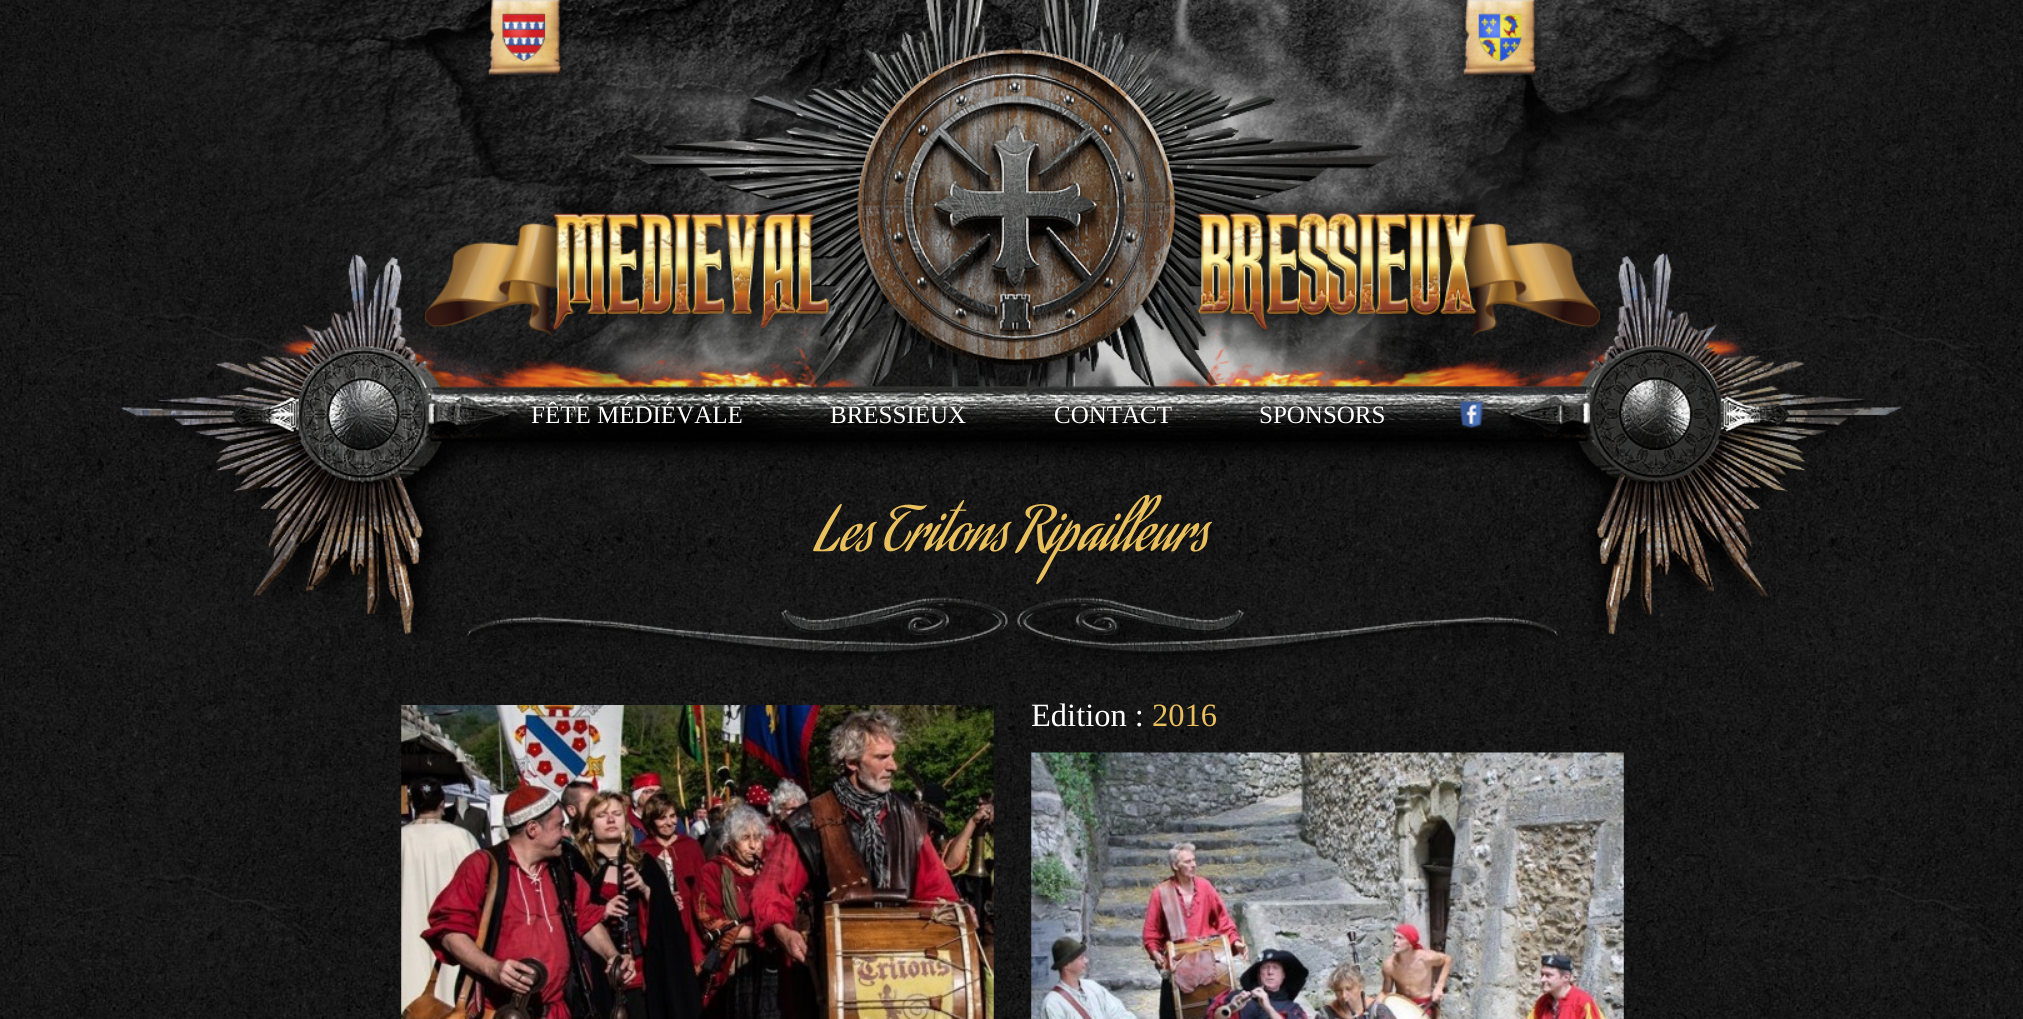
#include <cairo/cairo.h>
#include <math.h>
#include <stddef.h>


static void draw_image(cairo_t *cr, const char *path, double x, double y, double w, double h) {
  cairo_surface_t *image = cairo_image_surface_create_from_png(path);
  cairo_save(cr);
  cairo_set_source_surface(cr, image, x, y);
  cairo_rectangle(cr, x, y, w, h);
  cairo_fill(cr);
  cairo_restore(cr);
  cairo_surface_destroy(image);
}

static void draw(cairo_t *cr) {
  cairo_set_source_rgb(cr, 1, 1, 1);
  cairo_paint(cr);
  draw_image(cr, "images/1.png", 0, 0, 2023, 1019);
  draw_image(cr, "images/2.png", 100, 0, 1845, 537);
  draw_image(cr, "images/3.png", 485, 0, 1056, 449);
  draw_image(cr, "images/7.png", 467, 597, 1091, 69);
  draw_image(cr, "images/8.png", 401, 705, 593, 314);
  draw_image(cr, "images/9.png", 1031, 752, 593, 267);
  cairo_select_font_face(cr, "Aguafina Script", CAIRO_FONT_SLANT_NORMAL, CAIRO_FONT_WEIGHT_NORMAL);
  cairo_set_font_size(cr, 60);
  cairo_set_source_rgb(cr, 234 / 255.0, 192 / 255.0, 93 / 255.0);
  cairo_move_to(cr, 815, 550);
  cairo_show_text(cr, "Les Tritons Ripailleurs");
  draw_image(cr, "images/5.png", 121, 253, 1781, 388);
  draw_image(cr, "images/4.png", 425, 198, 1175, 139);
  draw_image(cr, "images/6.png", 1460, 401, 23, 27);
  cairo_select_font_face(cr, "Tinos", CAIRO_FONT_SLANT_NORMAL, CAIRO_FONT_WEIGHT_NORMAL);
  cairo_set_font_size(cr, 25);
  cairo_set_source_rgb(cr, 1, 1, 1);
  cairo_move_to(cr, 1259, 423);
  cairo_show_text(cr, "SPONSORS");
  cairo_move_to(cr, 1054, 423);
  cairo_show_text(cr, "CONTACT");
  cairo_move_to(cr, 830, 423);
  cairo_show_text(cr, "BRESSIEUX");
  cairo_move_to(cr, 531, 423);
  cairo_show_text(cr, "FÊTE MÉDIÉVALE");
  cairo_set_font_size(cr, 32.5);
  cairo_move_to(cr, 1031, 726);
  cairo_show_text(cr, "Edition :");
  cairo_set_source_rgb(cr, 234 / 255.0, 192 / 255.0, 93 / 255.0);
  cairo_move_to(cr, 1152, 726);
  cairo_show_text(cr, "2016");
}

int main(void) {
  cairo_surface_t *surface = cairo_image_surface_create(CAIRO_FORMAT_RGB24, 2023, 1019);
  cairo_t *cr = cairo_create(surface);
  cairo_font_options_t *options = cairo_font_options_create();
  cairo_font_options_set_hint_metrics(options, CAIRO_HINT_METRICS_OFF);
  cairo_font_options_set_hint_style(options, CAIRO_HINT_STYLE_NONE);
  cairo_set_font_options(cr, options);
  cairo_set_miter_limit(cr, 4);
  draw(cr);
  cairo_surface_write_to_png(surface, "out.png");
  cairo_font_options_destroy(options);
  cairo_destroy(cr);
  cairo_surface_destroy(surface);
  return 0;
}
